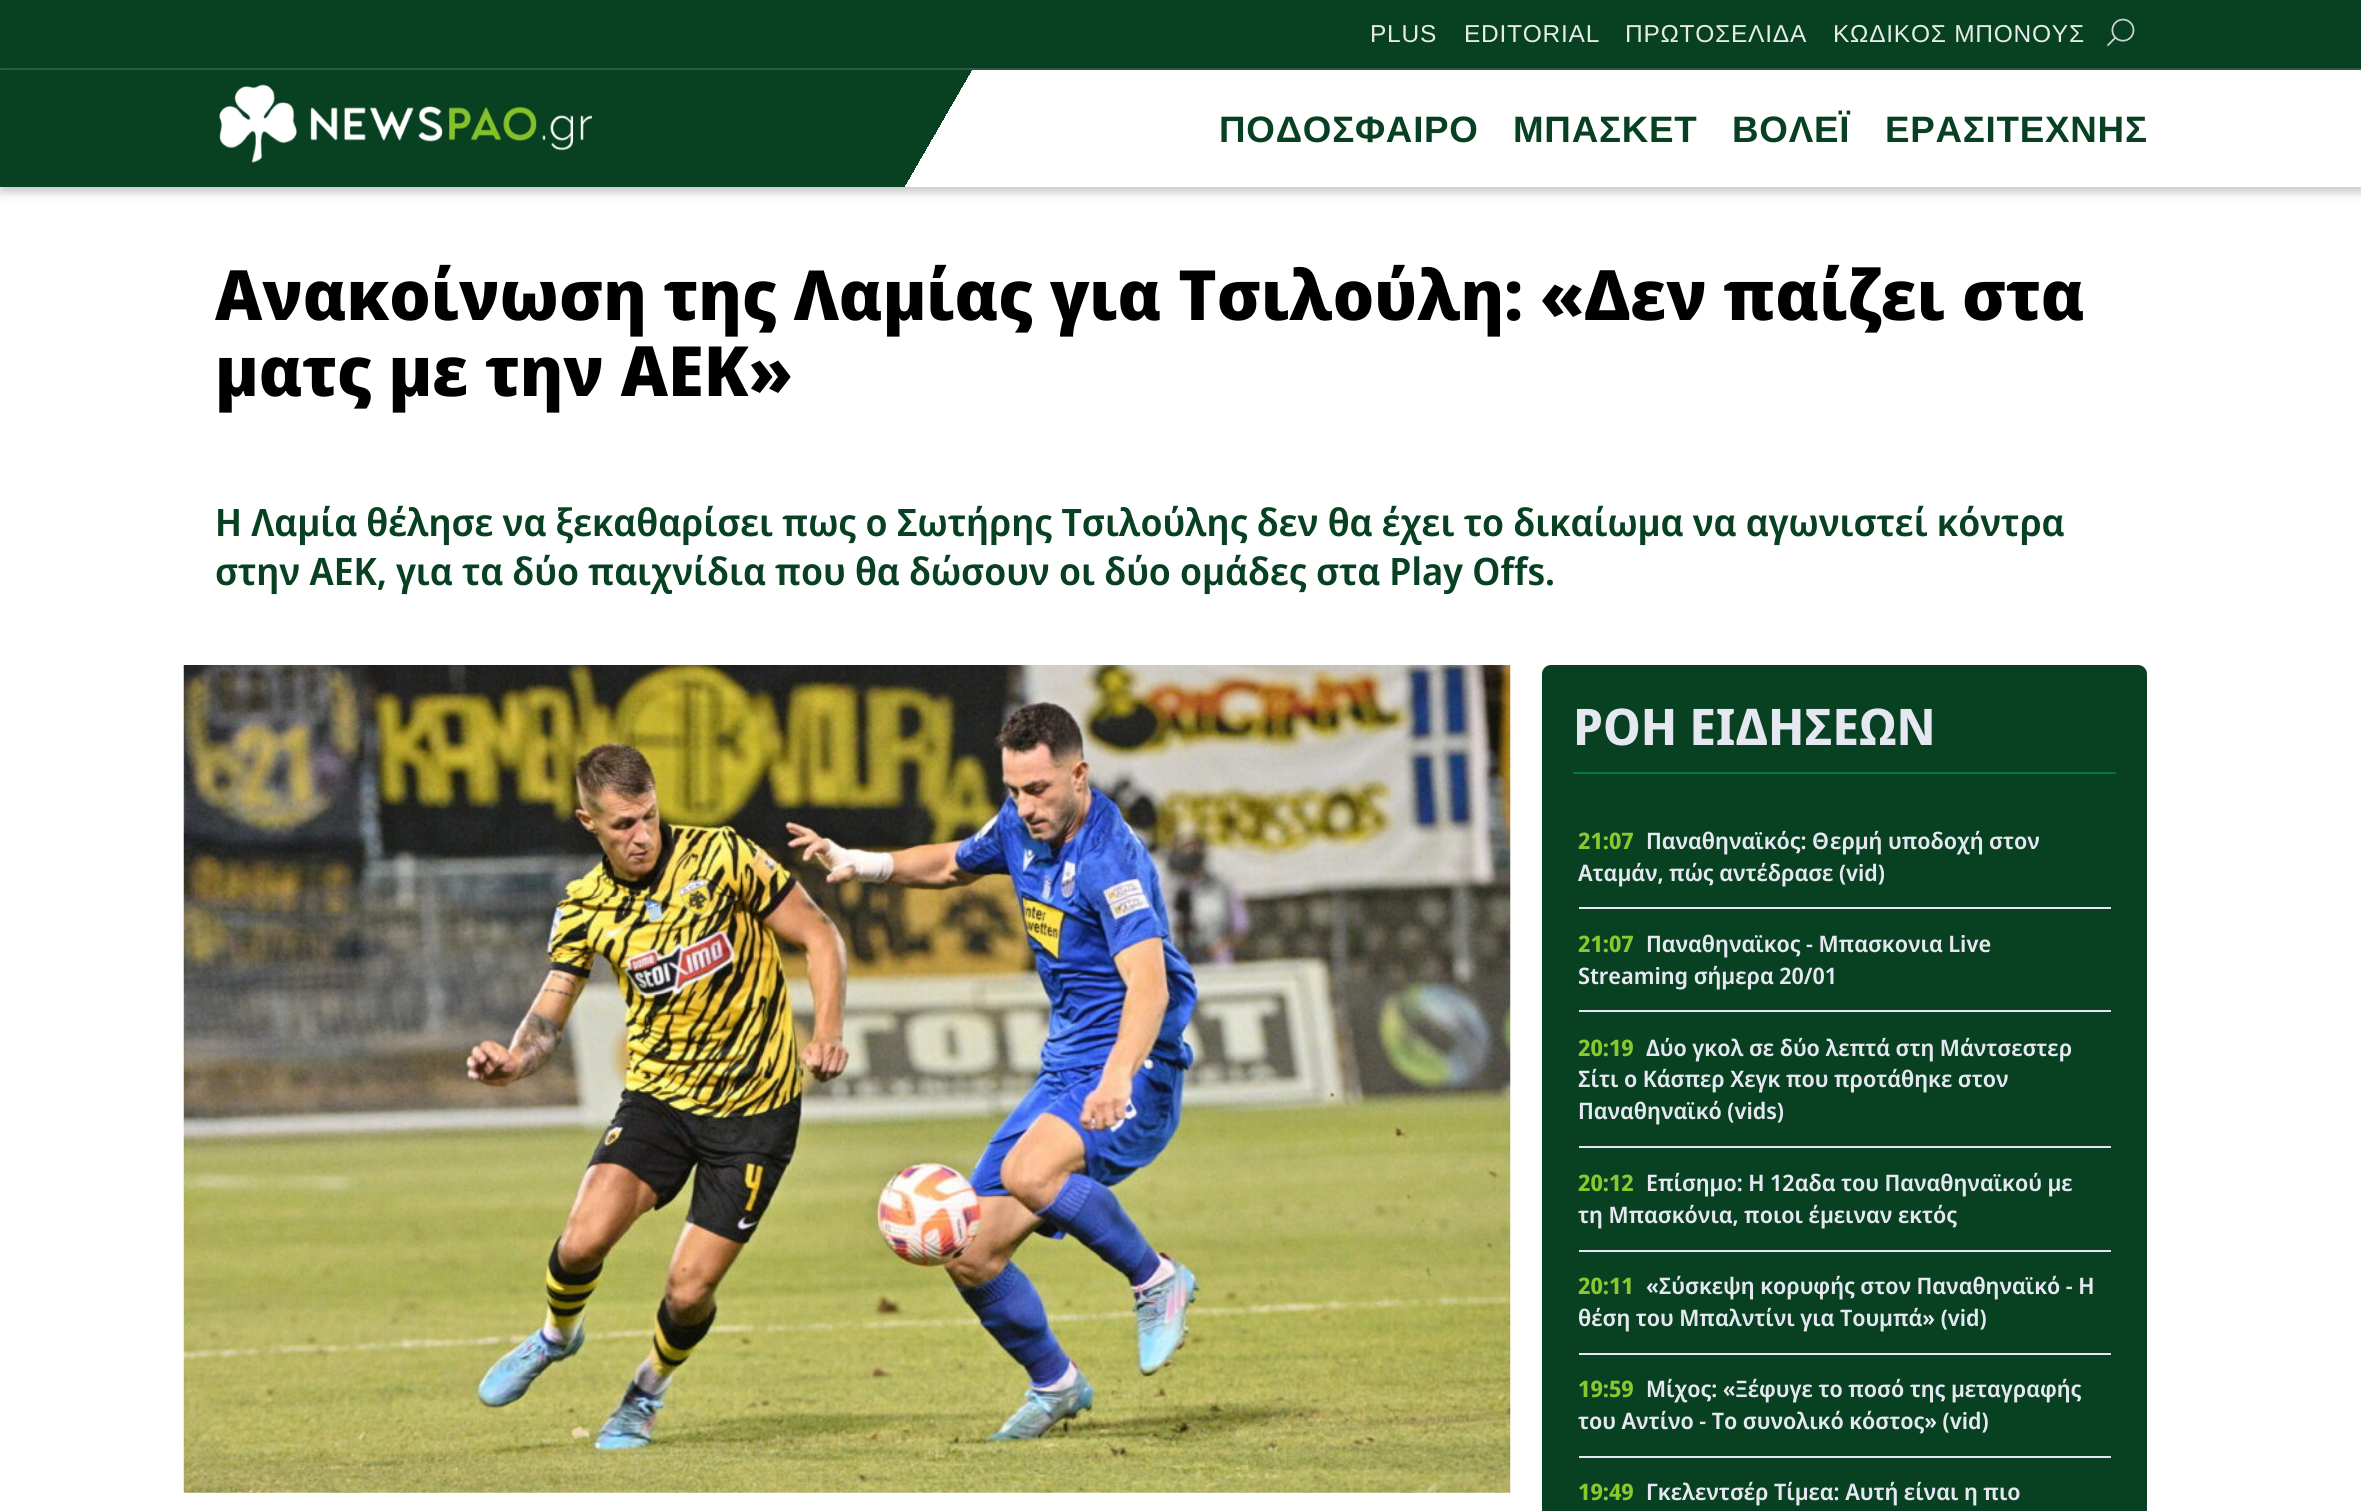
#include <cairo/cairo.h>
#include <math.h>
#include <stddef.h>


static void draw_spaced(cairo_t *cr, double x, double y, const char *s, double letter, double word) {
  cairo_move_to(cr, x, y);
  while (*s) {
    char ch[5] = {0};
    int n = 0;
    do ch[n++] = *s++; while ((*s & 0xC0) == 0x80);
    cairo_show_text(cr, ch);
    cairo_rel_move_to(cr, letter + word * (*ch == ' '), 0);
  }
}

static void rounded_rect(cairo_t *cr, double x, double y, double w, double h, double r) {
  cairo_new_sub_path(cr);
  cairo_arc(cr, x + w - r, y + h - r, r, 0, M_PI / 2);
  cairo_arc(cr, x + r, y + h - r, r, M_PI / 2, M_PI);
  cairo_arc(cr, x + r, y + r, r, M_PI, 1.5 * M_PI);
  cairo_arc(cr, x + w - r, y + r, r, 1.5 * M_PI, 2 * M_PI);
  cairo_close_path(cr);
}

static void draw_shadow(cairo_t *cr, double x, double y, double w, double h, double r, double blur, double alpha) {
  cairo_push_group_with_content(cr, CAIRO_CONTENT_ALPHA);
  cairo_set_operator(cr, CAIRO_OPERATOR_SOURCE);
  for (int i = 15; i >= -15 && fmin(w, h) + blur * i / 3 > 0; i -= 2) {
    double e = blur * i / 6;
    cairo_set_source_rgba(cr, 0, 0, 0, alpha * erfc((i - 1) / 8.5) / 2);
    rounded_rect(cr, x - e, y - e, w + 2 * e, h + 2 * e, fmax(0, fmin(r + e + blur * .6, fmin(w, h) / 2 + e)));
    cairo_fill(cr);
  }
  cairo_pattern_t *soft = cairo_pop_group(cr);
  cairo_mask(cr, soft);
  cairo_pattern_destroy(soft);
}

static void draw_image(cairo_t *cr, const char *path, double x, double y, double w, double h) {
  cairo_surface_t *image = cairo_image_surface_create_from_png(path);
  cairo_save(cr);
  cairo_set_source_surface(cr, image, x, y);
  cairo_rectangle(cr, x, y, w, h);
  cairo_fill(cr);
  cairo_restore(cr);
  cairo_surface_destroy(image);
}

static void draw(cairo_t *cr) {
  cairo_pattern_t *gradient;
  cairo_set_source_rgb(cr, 1, 1, 1);
  cairo_paint(cr);
  cairo_set_source_rgb(cr, 8 / 255.0, 64 / 255.0, 34 / 255.0);
  cairo_rectangle(cr, 0, 0, 2361, 68);
  cairo_fill(cr);
  cairo_set_source_rgb(cr, 45 / 255.0, 93 / 255.0, 67 / 255.0);
  cairo_rectangle(cr, 0, 68, 2361, 2);
  cairo_fill(cr);
  draw_image(cr, "images/1.png", 2107, 18, 28, 29);
  cairo_set_source_rgb(cr, 0, 0, 0);
  draw_shadow(cr, 0, 75, 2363, 118, 0, 4.5, 0.2);
  gradient = cairo_pattern_create_linear(270, -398, 2093, 655);
  cairo_pattern_add_color_stop_rgba(gradient, 0.4, 8 / 255.0, 64 / 255.0, 34 / 255.0, 1);
  cairo_pattern_add_color_stop_rgba(gradient, 0.4, 1, 1, 1, 1);
  cairo_set_source(cr, gradient);
  cairo_pattern_destroy(gradient);
  cairo_rectangle(cr, 0, 70, 2361, 117);
  cairo_fill(cr);
  draw_image(cr, "images/2.png", 219, 84, 374, 79);
  draw_image(cr, "images/3.png", 183, 665, 1328, 828);
  cairo_set_source_rgb(cr, 8 / 255.0, 64 / 255.0, 34 / 255.0);
  rounded_rect(cr, 1542, 665, 605, 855, 9);
  cairo_fill(cr);
  cairo_set_source_rgb(cr, 0, 120 / 255.0, 65 / 255.0);
  rounded_rect(cr, 1573, 772, 543, 2, 1);
  cairo_fill(cr);
  cairo_set_source_rgb(cr, 229 / 255.0, 232 / 255.0, 240 / 255.0);
  cairo_rectangle(cr, 1579, 907, 532, 2);
  cairo_fill(cr);
  cairo_rectangle(cr, 1579, 1010, 532, 2);
  cairo_fill(cr);
  cairo_rectangle(cr, 1579, 1146, 532, 2);
  cairo_fill(cr);
  cairo_rectangle(cr, 1579, 1250, 532, 2);
  cairo_fill(cr);
  cairo_rectangle(cr, 1579, 1353, 532, 2);
  cairo_fill(cr);
  cairo_rectangle(cr, 1579, 1456, 532, 2);
  cairo_fill(cr);
  cairo_select_font_face(cr, "Liberation Sans", CAIRO_FONT_SLANT_NORMAL, CAIRO_FONT_WEIGHT_NORMAL);
  cairo_set_font_size(cr, 24.5);
  cairo_set_source_rgb(cr, 230 / 255.0, 236 / 255.0, 233 / 255.0);
  draw_spaced(cr, 1370, 42, "PLUS", 0.75, 0);
  draw_spaced(cr, 1464, 42, "EDITORIAL", 0.75, 0);
  draw_spaced(cr, 1625, 42, "ΠΡΩΤΟΣΕΛΙΔΑ", 0.75, 0);
  draw_spaced(cr, 1833, 42, "ΚΩΔΙΚΟΣ ΜΠΟΝΟΥΣ", 0.75, 0);
  cairo_select_font_face(cr, "Liberation Sans", CAIRO_FONT_SLANT_NORMAL, CAIRO_FONT_WEIGHT_BOLD);
  cairo_set_font_size(cr, 36.75);
  cairo_set_source_rgb(cr, 8 / 255.0, 64 / 255.0, 34 / 255.0);
  draw_spaced(cr, 1219, 142, "ΠΟΔΟΣΦΑΙΡΟ", 0.75, 0);
  draw_spaced(cr, 1513, 142, "ΜΠΑΣΚΕΤ", 0.75, 0);
  draw_spaced(cr, 1732, 142, "ΒΟΛΕΪ", 0.75, 0);
  draw_spaced(cr, 1885, 142, "ΕΡΑΣΙΤΕΧΝΗΣ", 0.75, 0);
  cairo_select_font_face(cr, "Noto Sans Display ExtraBold", CAIRO_FONT_SLANT_NORMAL, CAIRO_FONT_WEIGHT_NORMAL);
  cairo_set_font_size(cr, 69.3);
  cairo_set_source_rgb(cr, 0, 0, 0);
  cairo_move_to(cr, 215, 320);
  cairo_show_text(cr, "Ανακοίνωση της Λαμίας για Τσιλούλη: «Δεν παίζει στα");
  cairo_move_to(cr, 215, 396);
  cairo_show_text(cr, "ματς με την ΑΕΚ»");
  cairo_select_font_face(cr, "Noto Sans Display SemiBold", CAIRO_FONT_SLANT_NORMAL, CAIRO_FONT_WEIGHT_NORMAL);
  cairo_set_font_size(cr, 37.8);
  cairo_set_source_rgb(cr, 8 / 255.0, 64 / 255.0, 34 / 255.0);
  cairo_move_to(cr, 215, 536);
  cairo_show_text(cr, "Η Λαμία θέλησε να ξεκαθαρίσει πως ο Σωτήρης Τσιλούλης δεν θα έχει το δικαίωμα να αγωνιστεί κόντρα");
  cairo_move_to(cr, 215, 585);
  cairo_show_text(cr, "στην ΑΕΚ, για τα δύο παιχνίδια που θα δώσουν οι δύο ομάδες στα Play Offs.");
  cairo_select_font_face(cr, "Noto Sans Display", CAIRO_FONT_SLANT_NORMAL, CAIRO_FONT_WEIGHT_BOLD);
  cairo_set_font_size(cr, 50.5);
  cairo_set_source_rgb(cr, 229 / 255.0, 232 / 255.0, 240 / 255.0);
  cairo_move_to(cr, 1573, 745);
  cairo_show_text(cr, "ΡΟΗ ΕΙΔΗΣΕΩΝ");
  cairo_set_font_size(cr, 22.75);
  cairo_set_source_rgb(cr, 137 / 255.0, 200 / 255.0, 46 / 255.0);
  cairo_move_to(cr, 1578, 849);
  cairo_show_text(cr, "21:07");
  cairo_select_font_face(cr, "Noto Sans Display SemiBold", CAIRO_FONT_SLANT_NORMAL, CAIRO_FONT_WEIGHT_NORMAL);
  cairo_set_source_rgb(cr, 229 / 255.0, 232 / 255.0, 240 / 255.0);
  cairo_move_to(cr, 1646, 849);
  cairo_show_text(cr, "Παναθηναϊκός: Θερμή υποδοχή στον");
  cairo_move_to(cr, 1578, 881);
  cairo_show_text(cr, "Αταμάν, πώς αντέδρασε (vid)");
  cairo_select_font_face(cr, "Noto Sans Display", CAIRO_FONT_SLANT_NORMAL, CAIRO_FONT_WEIGHT_BOLD);
  cairo_set_source_rgb(cr, 137 / 255.0, 200 / 255.0, 46 / 255.0);
  cairo_move_to(cr, 1578, 952);
  cairo_show_text(cr, "21:07");
  cairo_select_font_face(cr, "Noto Sans Display SemiBold", CAIRO_FONT_SLANT_NORMAL, CAIRO_FONT_WEIGHT_NORMAL);
  cairo_set_source_rgb(cr, 229 / 255.0, 232 / 255.0, 240 / 255.0);
  cairo_move_to(cr, 1646, 952);
  cairo_show_text(cr, "Παναθηναϊκος - Μπασκονια Live");
  cairo_move_to(cr, 1578, 984);
  cairo_show_text(cr, "Streaming σήμερα 20/01");
  cairo_select_font_face(cr, "Noto Sans Display", CAIRO_FONT_SLANT_NORMAL, CAIRO_FONT_WEIGHT_BOLD);
  cairo_set_source_rgb(cr, 137 / 255.0, 200 / 255.0, 46 / 255.0);
  cairo_move_to(cr, 1578, 1056);
  cairo_show_text(cr, "20:19");
  cairo_select_font_face(cr, "Noto Sans Display SemiBold", CAIRO_FONT_SLANT_NORMAL, CAIRO_FONT_WEIGHT_NORMAL);
  cairo_set_source_rgb(cr, 229 / 255.0, 232 / 255.0, 240 / 255.0);
  cairo_move_to(cr, 1646, 1056);
  cairo_show_text(cr, "Δύο γκολ σε δύο λεπτά στη Μάντσεστερ");
  cairo_move_to(cr, 1578, 1087);
  cairo_show_text(cr, "Σίτι ο Κάσπερ Χεγκ που προτάθηκε στον");
  cairo_move_to(cr, 1578, 1119);
  cairo_show_text(cr, "Παναθηναϊκό (vids)");
  cairo_select_font_face(cr, "Noto Sans Display", CAIRO_FONT_SLANT_NORMAL, CAIRO_FONT_WEIGHT_BOLD);
  cairo_set_source_rgb(cr, 137 / 255.0, 200 / 255.0, 46 / 255.0);
  cairo_move_to(cr, 1578, 1191);
  cairo_show_text(cr, "20:12");
  cairo_select_font_face(cr, "Noto Sans Display SemiBold", CAIRO_FONT_SLANT_NORMAL, CAIRO_FONT_WEIGHT_NORMAL);
  cairo_set_source_rgb(cr, 229 / 255.0, 232 / 255.0, 240 / 255.0);
  cairo_move_to(cr, 1646, 1191);
  cairo_show_text(cr, "Επίσημο: Η 12αδα του Παναθηναϊκού με");
  cairo_move_to(cr, 1578, 1223);
  cairo_show_text(cr, "τη Μπασκόνια, ποιοι έμειναν εκτός");
  cairo_select_font_face(cr, "Noto Sans Display", CAIRO_FONT_SLANT_NORMAL, CAIRO_FONT_WEIGHT_BOLD);
  cairo_set_source_rgb(cr, 137 / 255.0, 200 / 255.0, 46 / 255.0);
  cairo_move_to(cr, 1578, 1294);
  cairo_show_text(cr, "20:11");
  cairo_select_font_face(cr, "Noto Sans Display SemiBold", CAIRO_FONT_SLANT_NORMAL, CAIRO_FONT_WEIGHT_NORMAL);
  cairo_set_source_rgb(cr, 229 / 255.0, 232 / 255.0, 240 / 255.0);
  cairo_move_to(cr, 1646, 1294);
  cairo_show_text(cr, "«Σύσκεψη κορυφής στον Παναθηναϊκό - Η");
  cairo_move_to(cr, 1578, 1326);
  cairo_show_text(cr, "θέση του Μπαλντίνι για Τουμπά» (vid)");
  cairo_select_font_face(cr, "Noto Sans Display", CAIRO_FONT_SLANT_NORMAL, CAIRO_FONT_WEIGHT_BOLD);
  cairo_set_source_rgb(cr, 137 / 255.0, 200 / 255.0, 46 / 255.0);
  cairo_move_to(cr, 1578, 1397);
  cairo_show_text(cr, "19:59");
  cairo_select_font_face(cr, "Noto Sans Display SemiBold", CAIRO_FONT_SLANT_NORMAL, CAIRO_FONT_WEIGHT_NORMAL);
  cairo_set_source_rgb(cr, 229 / 255.0, 232 / 255.0, 240 / 255.0);
  cairo_move_to(cr, 1646, 1397);
  cairo_show_text(cr, "Μίχος: «Ξέφυγε το ποσό της μεταγραφής");
  cairo_move_to(cr, 1578, 1429);
  cairo_show_text(cr, "του Αντίνο - Το συνολικό κόστος» (vid)");
  cairo_select_font_face(cr, "Noto Sans Display", CAIRO_FONT_SLANT_NORMAL, CAIRO_FONT_WEIGHT_BOLD);
  cairo_set_source_rgb(cr, 137 / 255.0, 200 / 255.0, 46 / 255.0);
  cairo_move_to(cr, 1578, 1500);
  cairo_show_text(cr, "19:49");
  cairo_select_font_face(cr, "Noto Sans Display SemiBold", CAIRO_FONT_SLANT_NORMAL, CAIRO_FONT_WEIGHT_NORMAL);
  cairo_set_source_rgb(cr, 229 / 255.0, 232 / 255.0, 240 / 255.0);
  cairo_move_to(cr, 1646, 1500);
  cairo_show_text(cr, "Γκελεντσέρ Τίμεα: Αυτή είναι η πιο");
}

int main(void) {
  cairo_surface_t *surface = cairo_image_surface_create(CAIRO_FORMAT_RGB24, 2361, 1511);
  cairo_t *cr = cairo_create(surface);
  cairo_font_options_t *options = cairo_font_options_create();
  cairo_font_options_set_hint_metrics(options, CAIRO_HINT_METRICS_OFF);
  cairo_font_options_set_hint_style(options, CAIRO_HINT_STYLE_NONE);
  cairo_set_font_options(cr, options);
  cairo_set_miter_limit(cr, 4);
  draw(cr);
  cairo_surface_write_to_png(surface, "out.png");
  cairo_font_options_destroy(options);
  cairo_destroy(cr);
  cairo_surface_destroy(surface);
  return 0;
}
